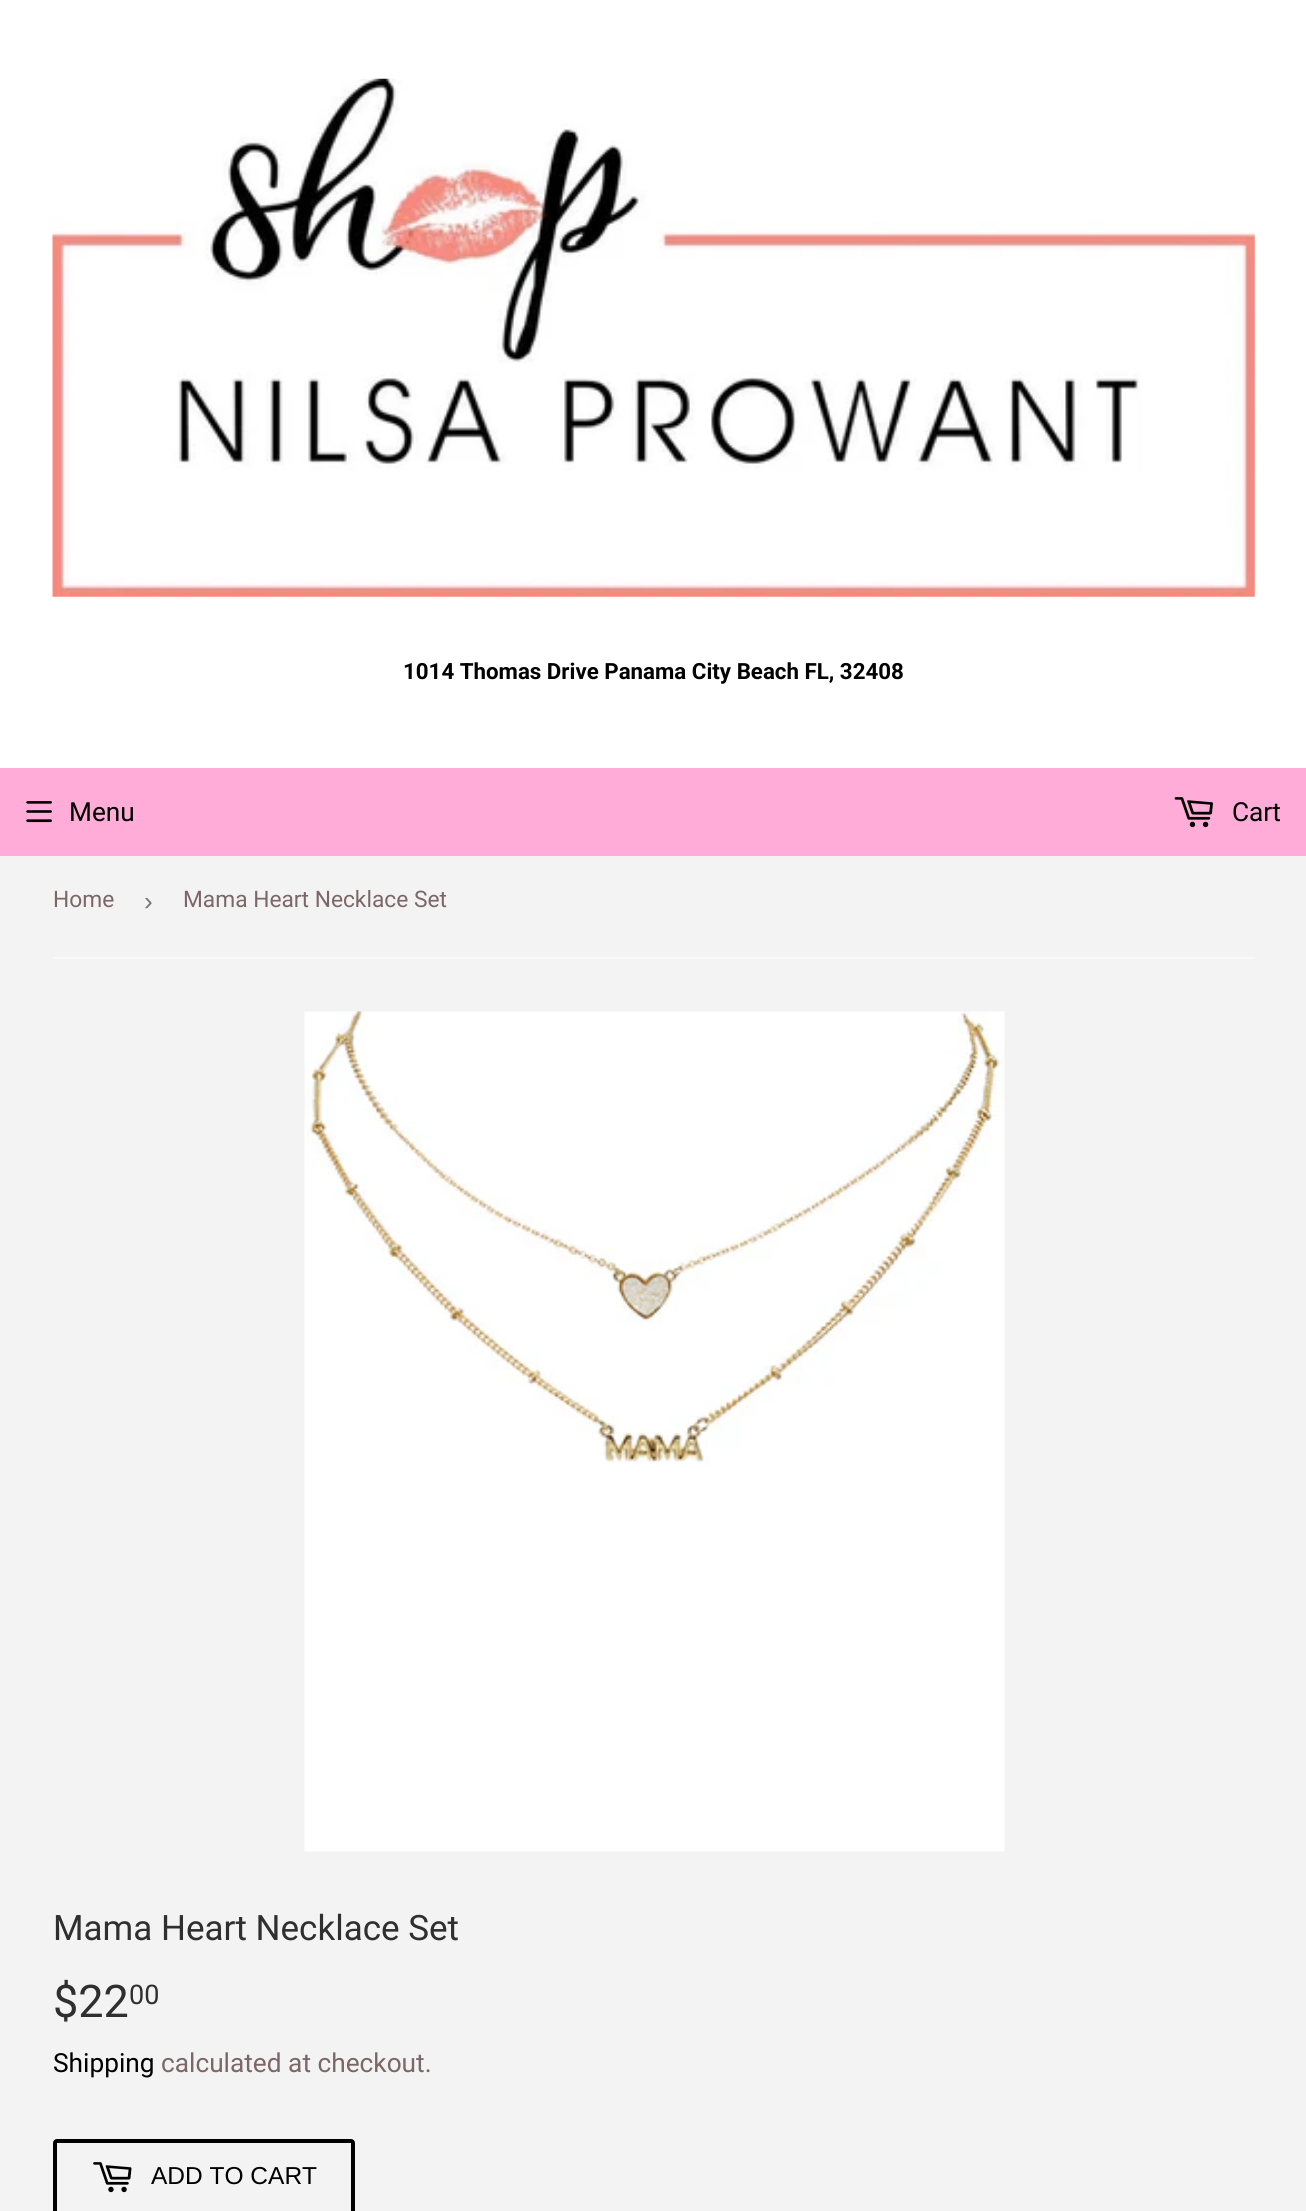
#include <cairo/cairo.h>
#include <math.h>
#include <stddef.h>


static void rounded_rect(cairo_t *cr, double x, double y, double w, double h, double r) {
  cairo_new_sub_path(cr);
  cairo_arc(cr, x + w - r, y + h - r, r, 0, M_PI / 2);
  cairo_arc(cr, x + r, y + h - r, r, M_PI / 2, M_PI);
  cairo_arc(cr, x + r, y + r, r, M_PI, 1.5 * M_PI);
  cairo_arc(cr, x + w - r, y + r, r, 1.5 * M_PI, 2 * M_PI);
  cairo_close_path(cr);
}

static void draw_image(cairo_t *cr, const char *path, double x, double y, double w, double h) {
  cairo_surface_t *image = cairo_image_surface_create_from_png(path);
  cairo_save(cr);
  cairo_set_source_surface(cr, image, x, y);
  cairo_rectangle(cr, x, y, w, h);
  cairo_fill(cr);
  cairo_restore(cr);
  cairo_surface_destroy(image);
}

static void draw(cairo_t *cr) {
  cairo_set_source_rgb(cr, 243 / 255.0, 243 / 255.0, 243 / 255.0);
  cairo_paint(cr);
  cairo_set_source_rgb(cr, 1, 1, 1);
  cairo_rectangle(cr, 0, 0, 1306, 768);
  cairo_fill(cr);
  draw_image(cr, "images/1.png", 52, 78, 1203, 519);
  cairo_set_source_rgb(cr, 1, 172 / 255.0, 216 / 255.0);
  cairo_rectangle(cr, 0, 768, 1306, 88);
  cairo_fill(cr);
  draw_image(cr, "images/2.png", 26, 801, 26, 22);
  draw_image(cr, "images/3.png", 1174, 797, 39, 31);
  cairo_set_source_rgb(cr, 250 / 255.0, 250 / 255.0, 250 / 255.0);
  cairo_rectangle(cr, 53, 957, 1202, 2);
  cairo_fill(cr);
  draw_image(cr, "images/4.png", 304, 1011, 701, 841);
  rounded_rect(cr, 55, 2141, 298, 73, 2);
  cairo_set_source_rgb(cr, 0, 0, 0);
  cairo_set_line_width(cr, 4);
  cairo_stroke(cr);
  draw_image(cr, "images/5.png", 93, 2162, 39, 31);
  cairo_select_font_face(cr, "Roboto", CAIRO_FONT_SLANT_NORMAL, CAIRO_FONT_WEIGHT_BOLD);
  cairo_set_font_size(cr, 22.3);
  cairo_move_to(cr, 403, 679);
  cairo_show_text(cr, "1014 Thomas Drive Panama City Beach FL, 32408");
  cairo_select_font_face(cr, "Roboto", CAIRO_FONT_SLANT_NORMAL, CAIRO_FONT_WEIGHT_NORMAL);
  cairo_set_font_size(cr, 26.25);
  cairo_move_to(cr, 69, 821);
  cairo_show_text(cr, "Menu");
  cairo_move_to(cr, 1232, 821);
  cairo_show_text(cr, "Cart");
  cairo_set_font_size(cr, 22.75);
  cairo_set_source_rgb(cr, 124 / 255.0, 103 / 255.0, 103 / 255.0);
  cairo_move_to(cr, 53, 907);
  cairo_show_text(cr, "Home");
  cairo_select_font_face(cr, "Liberation Sans", CAIRO_FONT_SLANT_NORMAL, CAIRO_FONT_WEIGHT_NORMAL);
  cairo_set_font_size(cr, 26.25);
  cairo_set_source_rgb(cr, 118 / 255.0, 118 / 255.0, 118 / 255.0);
  cairo_move_to(cr, 144, 910);
  cairo_show_text(cr, "›");
  cairo_select_font_face(cr, "Roboto", CAIRO_FONT_SLANT_NORMAL, CAIRO_FONT_WEIGHT_NORMAL);
  cairo_set_font_size(cr, 22.75);
  cairo_set_source_rgb(cr, 124 / 255.0, 103 / 255.0, 103 / 255.0);
  cairo_move_to(cr, 183, 907);
  cairo_show_text(cr, "Mama Heart Necklace Set");
  cairo_set_font_size(cr, 35);
  cairo_set_source_rgb(cr, 47 / 255.0, 47 / 255.0, 47 / 255.0);
  cairo_move_to(cr, 53, 1940);
  cairo_show_text(cr, "Mama Heart Necklace Set");
  cairo_set_font_size(cr, 45);
  cairo_move_to(cr, 53, 2017);
  cairo_show_text(cr, "$22");
  cairo_set_font_size(cr, 27);
  cairo_move_to(cr, 129, 2004);
  cairo_show_text(cr, "00");
  cairo_set_font_size(cr, 26.25);
  cairo_set_source_rgb(cr, 0, 0, 0);
  cairo_move_to(cr, 53, 2072);
  cairo_show_text(cr, "Shipping");
  cairo_set_source_rgb(cr, 124 / 255.0, 103 / 255.0, 103 / 255.0);
  cairo_move_to(cr, 161, 2072);
  cairo_show_text(cr, "calculated at checkout.");
  cairo_select_font_face(cr, "Arimo", CAIRO_FONT_SLANT_NORMAL, CAIRO_FONT_WEIGHT_NORMAL);
  cairo_set_font_size(cr, 24.5);
  cairo_set_source_rgb(cr, 0, 0, 0);
  cairo_move_to(cr, 151, 2184);
  cairo_show_text(cr, "ADD TO CART");
}

int main(void) {
  cairo_surface_t *surface = cairo_image_surface_create(CAIRO_FORMAT_RGB24, 1306, 2211);
  cairo_t *cr = cairo_create(surface);
  cairo_font_options_t *options = cairo_font_options_create();
  cairo_font_options_set_hint_metrics(options, CAIRO_HINT_METRICS_OFF);
  cairo_font_options_set_hint_style(options, CAIRO_HINT_STYLE_NONE);
  cairo_set_font_options(cr, options);
  cairo_set_miter_limit(cr, 4);
  draw(cr);
  cairo_surface_write_to_png(surface, "out.png");
  cairo_font_options_destroy(options);
  cairo_destroy(cr);
  cairo_surface_destroy(surface);
  return 0;
}
